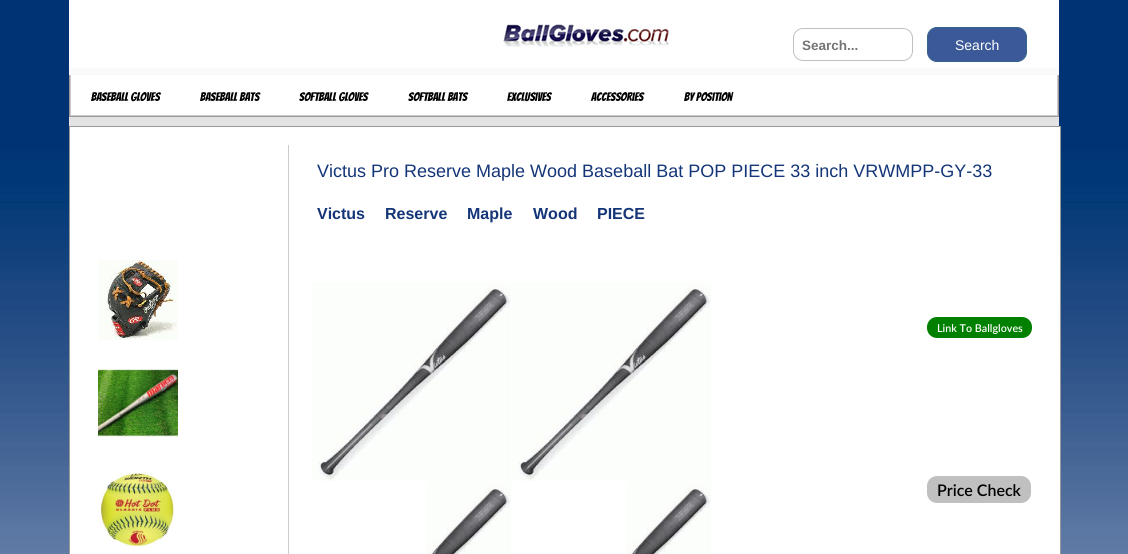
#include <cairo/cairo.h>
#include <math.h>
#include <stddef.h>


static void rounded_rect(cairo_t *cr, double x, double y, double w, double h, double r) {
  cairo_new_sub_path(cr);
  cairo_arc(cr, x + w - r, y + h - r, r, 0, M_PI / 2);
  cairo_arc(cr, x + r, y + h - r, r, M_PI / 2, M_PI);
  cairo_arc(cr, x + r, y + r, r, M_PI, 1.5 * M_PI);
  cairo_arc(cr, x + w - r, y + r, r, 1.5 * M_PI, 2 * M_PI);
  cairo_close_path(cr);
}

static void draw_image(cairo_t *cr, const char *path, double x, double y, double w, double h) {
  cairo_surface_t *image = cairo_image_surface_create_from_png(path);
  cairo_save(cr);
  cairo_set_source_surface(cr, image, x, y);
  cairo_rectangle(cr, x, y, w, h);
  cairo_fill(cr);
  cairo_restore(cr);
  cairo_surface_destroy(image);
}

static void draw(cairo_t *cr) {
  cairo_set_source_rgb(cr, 1, 1, 1);
  cairo_paint(cr);
  draw_image(cr, "images/1.png", 0, 0, 1128, 554);
  cairo_set_source_rgb(cr, 1, 1, 1);
  cairo_rectangle(cr, 69, 0, 990, 68);
  cairo_fill(cr);
  draw_image(cr, "images/2.png", 69, 68, 990, 7);
  cairo_set_source_rgb(cr, 227 / 255.0, 227 / 255.0, 227 / 255.0);
  cairo_rectangle(cr, 69, 117, 990, 9);
  cairo_fill(cr);
  draw_image(cr, "images/3.png", 503, 24, 166, 23);
  rounded_rect(cr, 793.5, 28.5, 119, 32, 9.5);
  cairo_set_source_rgb(cr, 192 / 255.0, 192 / 255.0, 192 / 255.0);
  cairo_set_line_width(cr, 1);
  cairo_stroke(cr);
  cairo_set_source_rgb(cr, 59 / 255.0, 89 / 255.0, 152 / 255.0);
  rounded_rect(cr, 927.5, 27.5, 99, 34, 9.5);
  cairo_fill_preserve(cr);
  cairo_set_source_rgb(cr, 54 / 255.0, 100 / 255.0, 139 / 255.0);
  cairo_stroke(cr);
  cairo_set_source_rgb(cr, 153 / 255.0, 153 / 255.0, 153 / 255.0);
  cairo_rectangle(cr, 1058, 75, 1, 42);
  cairo_fill(cr);
  cairo_rectangle(cr, 69, 116, 990, 1);
  cairo_fill(cr);
  cairo_rectangle(cr, 69, 75, 1, 42);
  cairo_fill(cr);
  cairo_set_source_rgb(cr, 1, 1, 1);
  cairo_rectangle(cr, 71, 75, 986, 40);
  cairo_fill(cr);
  cairo_set_source_rgb(cr, 204 / 255.0, 204 / 255.0, 204 / 255.0);
  cairo_rectangle(cr, 1057, 75, 1, 41);
  cairo_fill(cr);
  cairo_rectangle(cr, 70, 115, 988, 1);
  cairo_fill(cr);
  cairo_rectangle(cr, 70, 75, 1, 41);
  cairo_fill(cr);
  cairo_set_source_rgb(cr, 1, 1, 1);
  cairo_rectangle(cr, 69.5, 126.5, 991, 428);
  cairo_fill_preserve(cr);
  cairo_set_source_rgb(cr, 153 / 255.0, 153 / 255.0, 153 / 255.0);
  cairo_stroke(cr);
  draw_image(cr, "images/4.png", 98, 260, 80, 80);
  draw_image(cr, "images/5.png", 98, 368, 80, 69);
  draw_image(cr, "images/6.png", 98, 472, 77, 75);
  cairo_set_source_rgb(cr, 204 / 255.0, 204 / 255.0, 204 / 255.0);
  cairo_rectangle(cr, 288, 145, 1, 409);
  cairo_fill(cr);
  draw_image(cr, "images/7.png", 312, 282, 199, 199);
  draw_image(cr, "images/7.png", 512, 282, 199, 199);
  draw_image(cr, "images/8.png", 427, 482, 84, 72);
  draw_image(cr, "images/8.png", 627, 482, 84, 72);
  cairo_set_source_rgb(cr, 0, 128 / 255.0, 0);
  rounded_rect(cr, 927, 317, 105, 21, 10);
  cairo_fill(cr);
  cairo_set_source_rgb(cr, 192 / 255.0, 192 / 255.0, 192 / 255.0);
  rounded_rect(cr, 927, 476, 104, 27, 10);
  cairo_fill(cr);
  cairo_select_font_face(cr, "Liberation Sans", CAIRO_FONT_SLANT_NORMAL, CAIRO_FONT_WEIGHT_BOLD);
  cairo_set_font_size(cr, 13.5);
  cairo_set_source_rgb(cr, 117 / 255.0, 117 / 255.0, 117 / 255.0);
  cairo_move_to(cr, 802, 50);
  cairo_show_text(cr, "Search...");
  cairo_select_font_face(cr, "Liberation Sans", CAIRO_FONT_SLANT_NORMAL, CAIRO_FONT_WEIGHT_NORMAL);
  cairo_set_font_size(cr, 14);
  cairo_set_source_rgb(cr, 1, 1, 1);
  cairo_move_to(cr, 955, 50);
  cairo_show_text(cr, "Search");
  cairo_select_font_face(cr, "Bangers", CAIRO_FONT_SLANT_NORMAL, CAIRO_FONT_WEIGHT_NORMAL);
  cairo_set_font_size(cr, 12);
  cairo_set_source_rgb(cr, 0, 0, 0);
  cairo_move_to(cr, 91, 101);
  cairo_show_text(cr, "Baseball Gloves");
  cairo_move_to(cr, 200, 101);
  cairo_show_text(cr, "Baseball Bats");
  cairo_move_to(cr, 299, 101);
  cairo_show_text(cr, "Softball Gloves");
  cairo_move_to(cr, 408, 101);
  cairo_show_text(cr, "Softball Bats");
  cairo_move_to(cr, 507, 101);
  cairo_show_text(cr, "Exclusives");
  cairo_move_to(cr, 591, 101);
  cairo_show_text(cr, "Accessories");
  cairo_move_to(cr, 684, 101);
  cairo_show_text(cr, "By Position");
  cairo_select_font_face(cr, "Liberation Sans", CAIRO_FONT_SLANT_NORMAL, CAIRO_FONT_WEIGHT_NORMAL);
  cairo_set_font_size(cr, 18);
  cairo_set_source_rgb(cr, 20 / 255.0, 53 / 255.0, 120 / 255.0);
  cairo_move_to(cr, 317, 177);
  cairo_show_text(cr, "Victus Pro Reserve Maple Wood Baseball Bat POP PIECE 33 inch VRWMPP-GY-33");
  cairo_select_font_face(cr, "Liberation Sans", CAIRO_FONT_SLANT_NORMAL, CAIRO_FONT_WEIGHT_BOLD);
  cairo_set_font_size(cr, 16);
  cairo_move_to(cr, 317, 219);
  cairo_show_text(cr, "Victus");
  cairo_move_to(cr, 385, 219);
  cairo_show_text(cr, "Reserve");
  cairo_move_to(cr, 467, 219);
  cairo_show_text(cr, "Maple");
  cairo_move_to(cr, 533, 219);
  cairo_show_text(cr, "Wood");
  cairo_move_to(cr, 597, 219);
  cairo_show_text(cr, "PIECE");
  cairo_select_font_face(cr, "Lato SemiBold", CAIRO_FONT_SLANT_NORMAL, CAIRO_FONT_WEIGHT_NORMAL);
  cairo_set_font_size(cr, 10.75);
  cairo_set_source_rgb(cr, 1, 1, 1);
  cairo_move_to(cr, 937, 332);
  cairo_show_text(cr, "Link To Ballgloves");
  cairo_set_font_size(cr, 16);
  cairo_set_source_rgb(cr, 0, 0, 0);
  cairo_move_to(cr, 937, 496);
  cairo_show_text(cr, "Price Check");
}

int main(void) {
  cairo_surface_t *surface = cairo_image_surface_create(CAIRO_FORMAT_RGB24, 1128, 554);
  cairo_t *cr = cairo_create(surface);
  cairo_font_options_t *options = cairo_font_options_create();
  cairo_font_options_set_hint_metrics(options, CAIRO_HINT_METRICS_OFF);
  cairo_font_options_set_hint_style(options, CAIRO_HINT_STYLE_NONE);
  cairo_set_font_options(cr, options);
  cairo_set_miter_limit(cr, 4);
  draw(cr);
  cairo_surface_write_to_png(surface, "out.png");
  cairo_font_options_destroy(options);
  cairo_destroy(cr);
  cairo_surface_destroy(surface);
  return 0;
}
